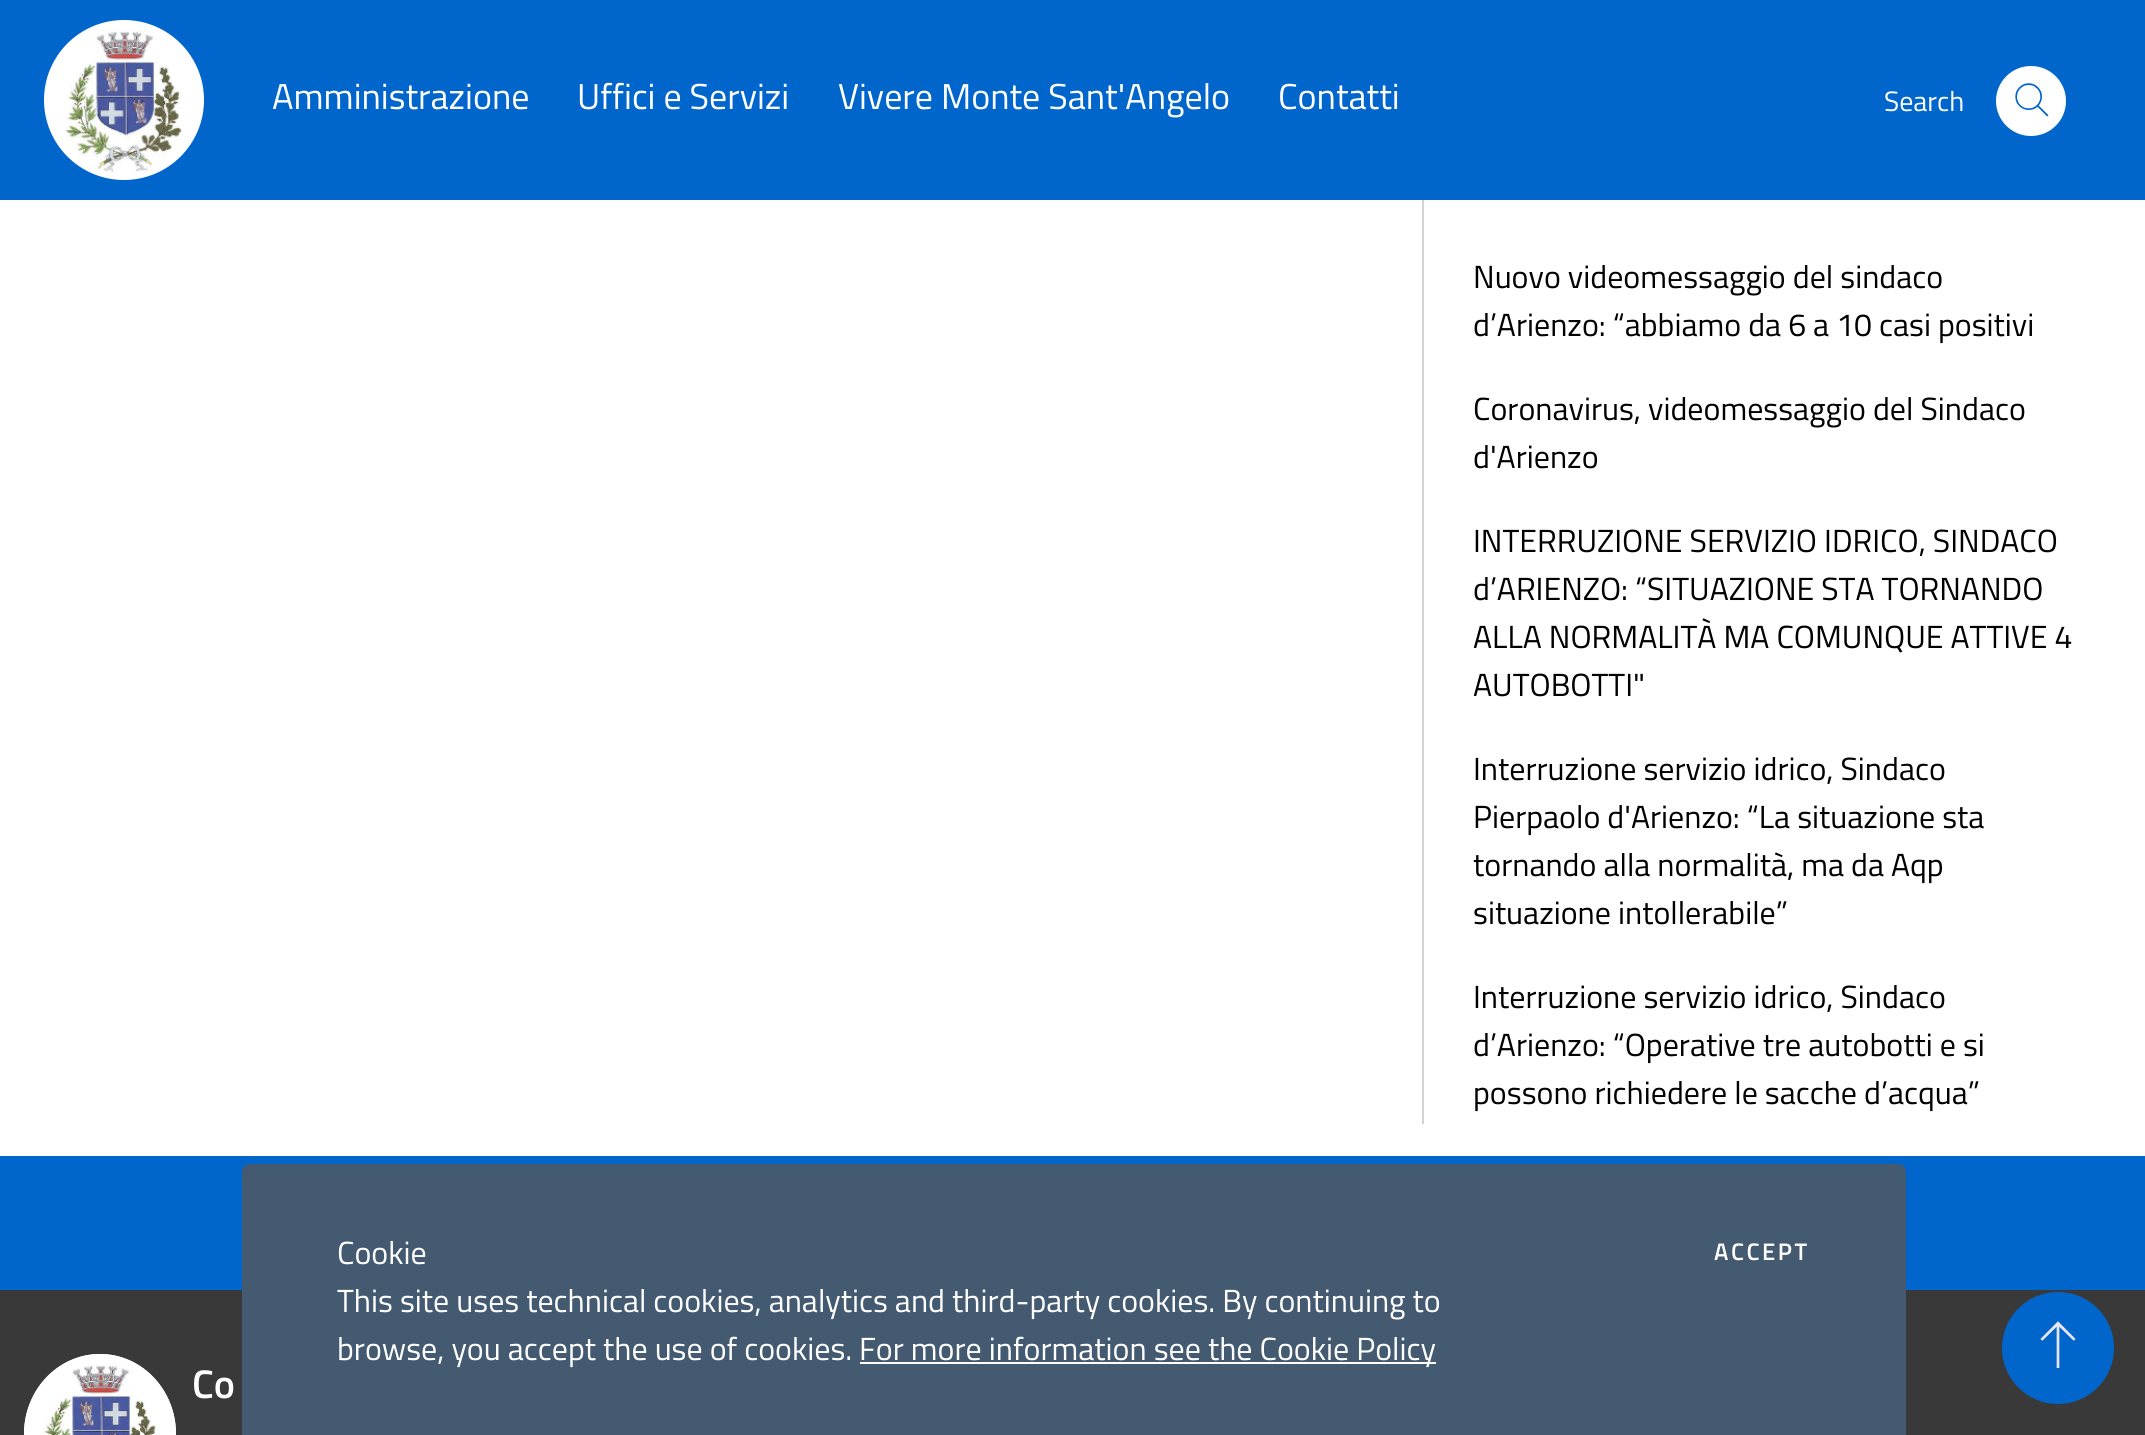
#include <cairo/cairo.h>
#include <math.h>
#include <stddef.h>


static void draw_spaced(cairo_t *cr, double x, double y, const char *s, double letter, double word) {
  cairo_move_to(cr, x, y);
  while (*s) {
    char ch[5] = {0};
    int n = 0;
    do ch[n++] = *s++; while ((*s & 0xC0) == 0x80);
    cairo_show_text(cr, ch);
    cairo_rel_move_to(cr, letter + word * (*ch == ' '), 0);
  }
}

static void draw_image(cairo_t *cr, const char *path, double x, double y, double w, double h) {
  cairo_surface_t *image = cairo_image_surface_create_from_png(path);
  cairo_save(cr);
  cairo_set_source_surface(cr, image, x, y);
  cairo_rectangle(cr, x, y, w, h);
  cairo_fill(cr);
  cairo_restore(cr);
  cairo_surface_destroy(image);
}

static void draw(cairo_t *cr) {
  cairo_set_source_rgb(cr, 1, 1, 1);
  cairo_paint(cr);
  cairo_set_source_rgb(cr, 0, 102 / 255.0, 204 / 255.0);
  cairo_rectangle(cr, 0, 0, 2145, 200);
  cairo_fill(cr);
  cairo_set_source_rgb(cr, 1, 1, 1);
  cairo_arc(cr, 124, 100, 79, 0, 2 * M_PI);
  cairo_fill_preserve(cr);
  cairo_stroke(cr);
  draw_image(cr, "images/1.png", 65, 30, 118, 143);
  cairo_arc(cr, 2031, 101, 35, 0, 2 * M_PI);
  cairo_fill(cr);
  draw_image(cr, "images/2.png", 2015, 83, 34, 34);
  cairo_set_source_rgb(cr, 211 / 255.0, 211 / 255.0, 211 / 255.0);
  cairo_rectangle(cr, 1422, 200, 2, 924);
  cairo_fill(cr);
  cairo_set_source_rgb(cr, 57 / 255.0, 57 / 255.0, 57 / 255.0);
  cairo_rectangle(cr, 0, 1290, 2145, 145);
  cairo_fill(cr);
  cairo_set_source_rgb(cr, 0, 102 / 255.0, 204 / 255.0);
  cairo_rectangle(cr, 0, 1156, 2145, 134);
  cairo_fill(cr);
  cairo_set_source_rgb(cr, 1, 1, 1);
  cairo_new_path(cr);
  cairo_move_to(cr, 100, 1354);
  cairo_curve_to(cr, 142, 1354, 176, 1390, 176, 1434);
  cairo_curve_to(cr, 176, 1478, 142, 1514, 100, 1514);
  cairo_curve_to(cr, 58, 1514, 24, 1478, 24, 1434);
  cairo_curve_to(cr, 24, 1390, 58, 1354, 100, 1354);
  cairo_close_path(cr);
  cairo_fill(cr);
  cairo_new_path(cr);
  cairo_move_to(cr, 100, 1355);
  cairo_curve_to(cr, 141.5, 1355, 175, 1390.5, 175, 1434);
  cairo_curve_to(cr, 175, 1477.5, 141.5, 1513, 100, 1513);
  cairo_curve_to(cr, 58.5, 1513, 25, 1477.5, 25, 1434);
  cairo_curve_to(cr, 25, 1390.5, 58.5, 1355, 100, 1355);
  cairo_close_path(cr);
  cairo_stroke(cr);
  draw_image(cr, "images/3.png", 42, 1364, 116, 71);
  cairo_set_source_rgb(cr, 67 / 255.0, 90 / 255.0, 112 / 255.0);
  cairo_new_path(cr);
  cairo_move_to(cr, 250, 1164);
  cairo_line_to(cr, 1898, 1164);
  cairo_curve_to(cr, 1902.5, 1164, 1906, 1167.5, 1906, 1172);
  cairo_line_to(cr, 1906, 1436);
  cairo_line_to(cr, 242, 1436);
  cairo_line_to(cr, 242, 1172);
  cairo_curve_to(cr, 242, 1167.5, 245.5, 1164, 250, 1164);
  cairo_close_path(cr);
  cairo_fill(cr);
  cairo_set_source_rgb(cr, 1, 1, 1);
  cairo_rectangle(cr, 860, 1362, 576, 2);
  cairo_fill(cr);
  cairo_set_source_rgb(cr, 0, 102 / 255.0, 204 / 255.0);
  cairo_arc(cr, 2058, 1348, 56, 0, 2 * M_PI);
  cairo_fill(cr);
  draw_image(cr, "images/4.png", 2040, 1321, 36, 47);
  cairo_select_font_face(cr, "Titillium Web", CAIRO_FONT_SLANT_NORMAL, CAIRO_FONT_WEIGHT_NORMAL);
  cairo_set_font_size(cr, 36);
  cairo_set_source_rgb(cr, 1, 1, 1);
  cairo_move_to(cr, 272, 109);
  cairo_show_text(cr, "Amministrazione");
  cairo_move_to(cr, 577, 109);
  cairo_show_text(cr, "Uffici e Servizi");
  cairo_move_to(cr, 838, 109);
  cairo_show_text(cr, "Vivere Monte Sant'Angelo");
  cairo_move_to(cr, 1278, 109);
  cairo_show_text(cr, "Contatti");
  cairo_set_font_size(cr, 28);
  cairo_move_to(cr, 1884, 111);
  cairo_show_text(cr, "Search");
  cairo_set_font_size(cr, 32);
  cairo_set_source_rgb(cr, 0, 0, 0);
  cairo_move_to(cr, 1473, 288);
  cairo_show_text(cr, "Nuovo videomessaggio del sindaco");
  cairo_move_to(cr, 1473, 336);
  cairo_show_text(cr, "d’Arienzo: “abbiamo da 6 a 10 casi positivi");
  cairo_move_to(cr, 1473, 420);
  cairo_show_text(cr, "Coronavirus, videomessaggio del Sindaco");
  cairo_move_to(cr, 1473, 468);
  cairo_show_text(cr, "d'Arienzo");
  cairo_move_to(cr, 1473, 552);
  cairo_show_text(cr, "INTERRUZIONE SERVIZIO IDRICO, SINDACO");
  cairo_move_to(cr, 1473, 600);
  cairo_show_text(cr, "d’ARIENZO: “SITUAZIONE STA TORNANDO");
  cairo_move_to(cr, 1473, 648);
  cairo_show_text(cr, "ALLA NORMALITÀ MA COMUNQUE ATTIVE 4");
  cairo_move_to(cr, 1473, 696);
  cairo_show_text(cr, "AUTOBOTTI\"");
  cairo_move_to(cr, 1473, 780);
  cairo_show_text(cr, "Interruzione servizio idrico, Sindaco");
  cairo_move_to(cr, 1473, 828);
  cairo_show_text(cr, "Pierpaolo d'Arienzo: “La situazione sta");
  cairo_move_to(cr, 1473, 876);
  cairo_show_text(cr, "tornando alla normalità, ma da Aqp");
  cairo_move_to(cr, 1473, 924);
  cairo_show_text(cr, "situazione intollerabile”");
  cairo_move_to(cr, 1473, 1008);
  cairo_show_text(cr, "Interruzione servizio idrico, Sindaco");
  cairo_move_to(cr, 1473, 1056);
  cairo_show_text(cr, "d’Arienzo: “Operative tre autobotti e si");
  cairo_move_to(cr, 1473, 1104);
  cairo_show_text(cr, "possono richiedere le sacche d’acqua”");
  cairo_select_font_face(cr, "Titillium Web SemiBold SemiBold", CAIRO_FONT_SLANT_NORMAL, CAIRO_FONT_WEIGHT_NORMAL);
  cairo_set_font_size(cr, 40);
  cairo_set_source_rgb(cr, 1, 1, 1);
  cairo_move_to(cr, 192, 1398);
  cairo_show_text(cr, "Co");
  cairo_select_font_face(cr, "Titillium Web", CAIRO_FONT_SLANT_NORMAL, CAIRO_FONT_WEIGHT_NORMAL);
  cairo_set_font_size(cr, 32);
  cairo_move_to(cr, 337, 1264);
  cairo_show_text(cr, "Cookie");
  cairo_move_to(cr, 337, 1312);
  cairo_show_text(cr, "This site uses technical cookies, analytics and third-party cookies. By continuing to");
  cairo_move_to(cr, 337, 1360);
  cairo_show_text(cr, "browse, you accept the use of cookies.");
  cairo_move_to(cr, 859, 1360);
  cairo_show_text(cr, "For more information see the Cookie Policy");
  cairo_select_font_face(cr, "Titillium Web SemiBold SemiBold", CAIRO_FONT_SLANT_NORMAL, CAIRO_FONT_WEIGHT_NORMAL);
  cairo_set_font_size(cr, 24);
  draw_spaced(cr, 1714, 1260, "ACCEPT", 2.5, 0);
}

int main(void) {
  cairo_surface_t *surface = cairo_image_surface_create(CAIRO_FORMAT_RGB24, 2145, 1435);
  cairo_t *cr = cairo_create(surface);
  cairo_font_options_t *options = cairo_font_options_create();
  cairo_font_options_set_hint_metrics(options, CAIRO_HINT_METRICS_OFF);
  cairo_font_options_set_hint_style(options, CAIRO_HINT_STYLE_NONE);
  cairo_set_font_options(cr, options);
  cairo_set_miter_limit(cr, 4);
  draw(cr);
  cairo_surface_write_to_png(surface, "out.png");
  cairo_font_options_destroy(options);
  cairo_destroy(cr);
  cairo_surface_destroy(surface);
  return 0;
}
